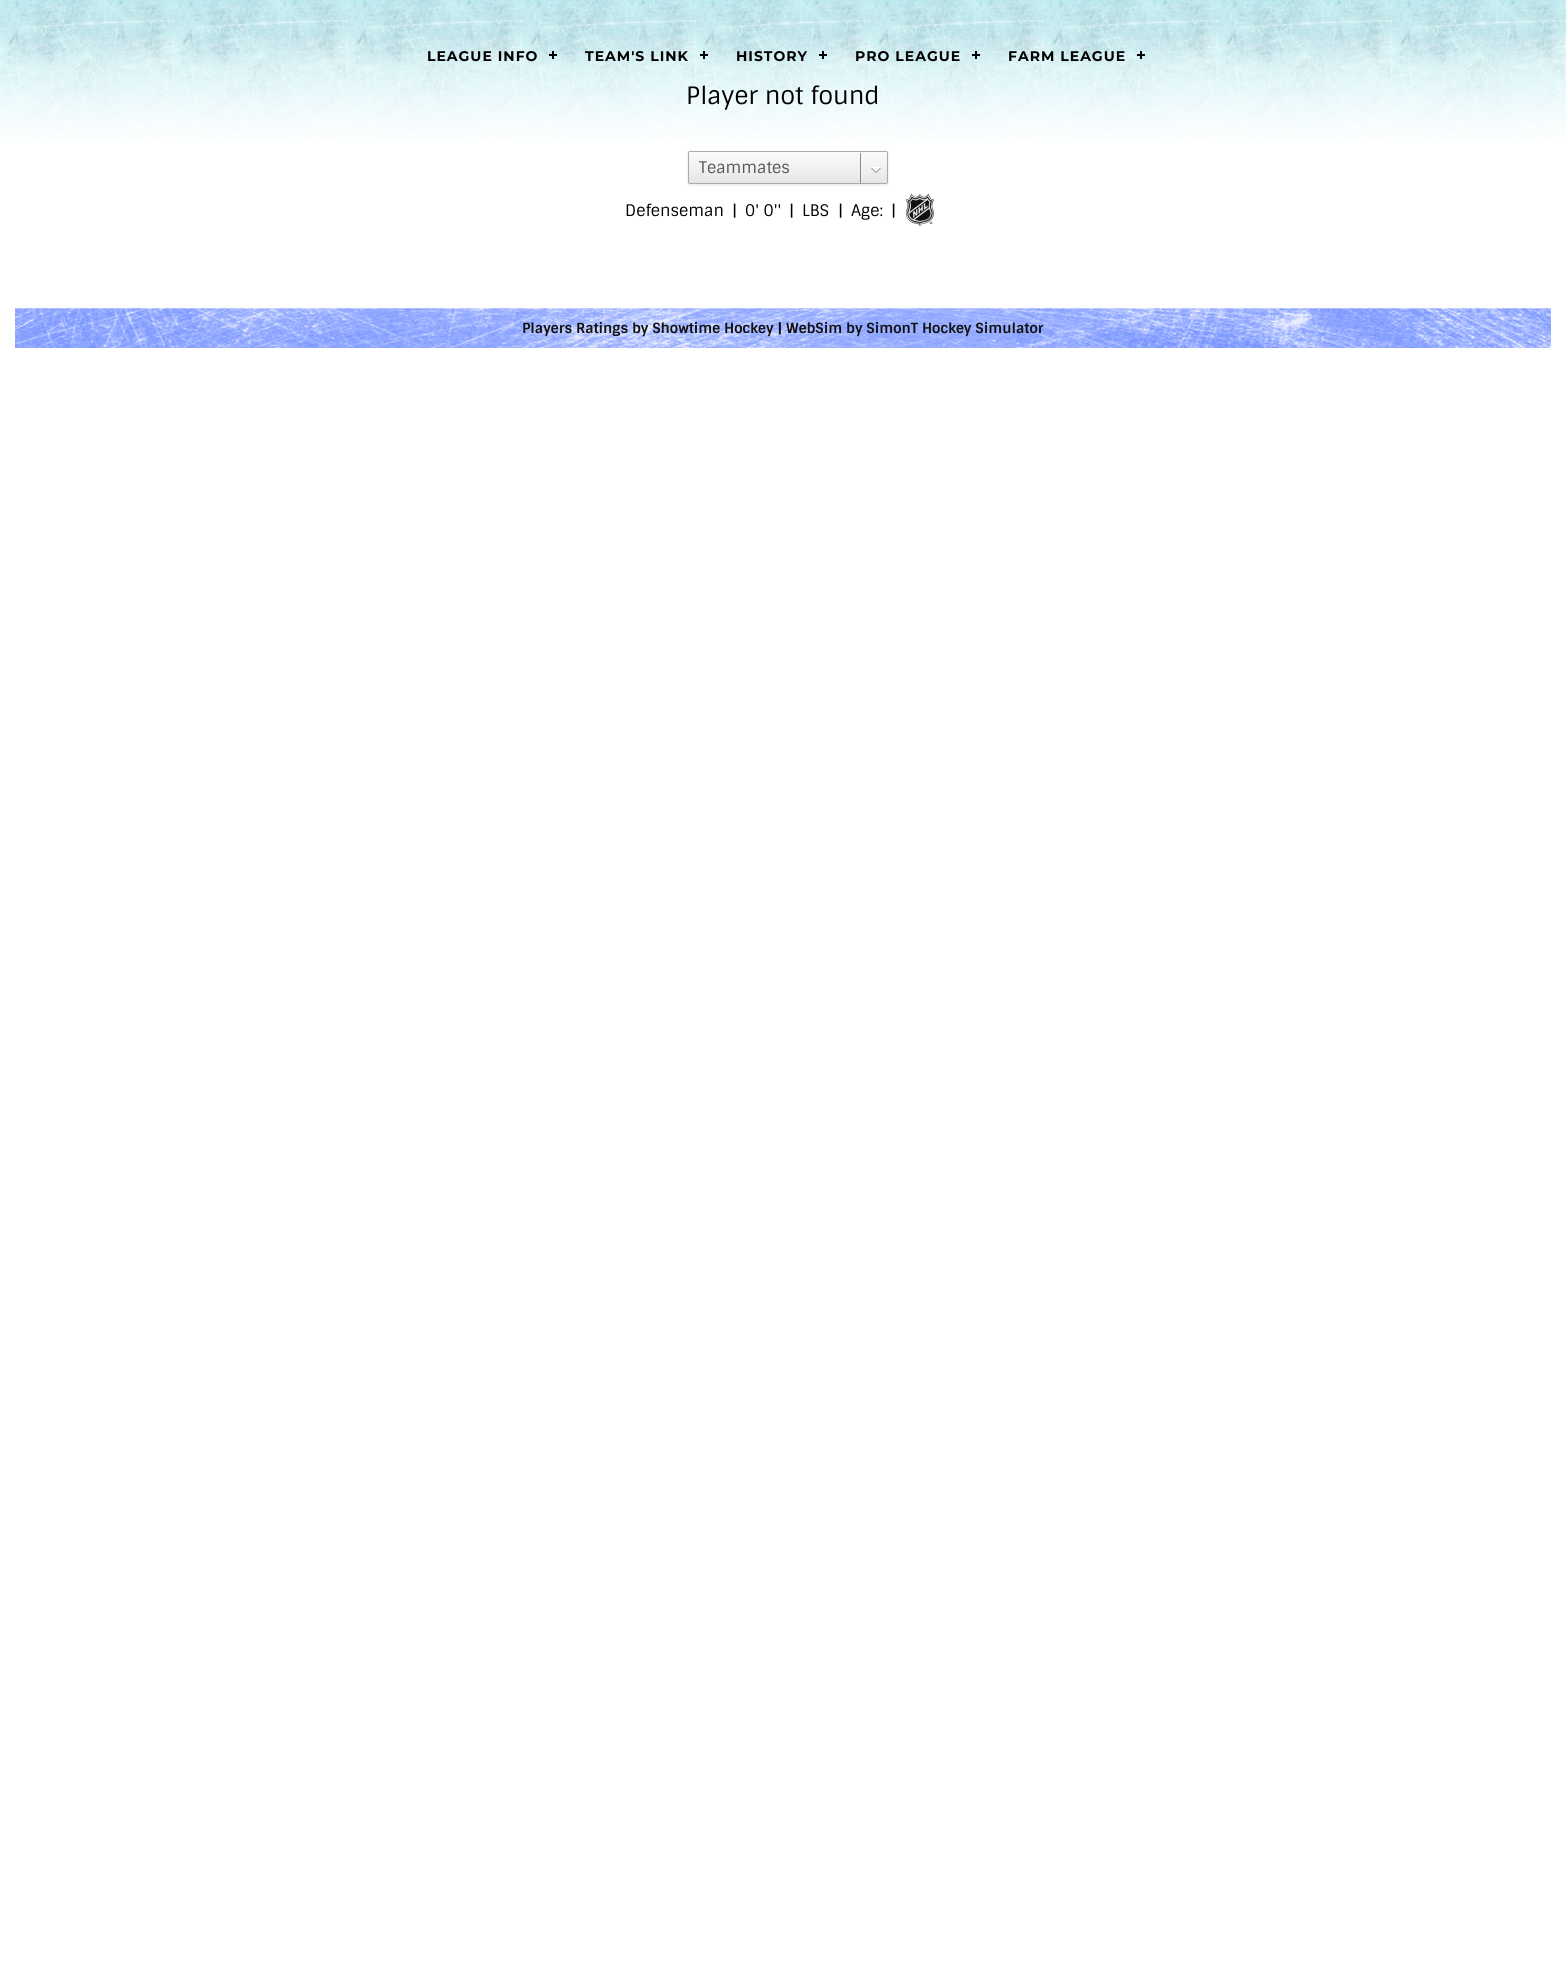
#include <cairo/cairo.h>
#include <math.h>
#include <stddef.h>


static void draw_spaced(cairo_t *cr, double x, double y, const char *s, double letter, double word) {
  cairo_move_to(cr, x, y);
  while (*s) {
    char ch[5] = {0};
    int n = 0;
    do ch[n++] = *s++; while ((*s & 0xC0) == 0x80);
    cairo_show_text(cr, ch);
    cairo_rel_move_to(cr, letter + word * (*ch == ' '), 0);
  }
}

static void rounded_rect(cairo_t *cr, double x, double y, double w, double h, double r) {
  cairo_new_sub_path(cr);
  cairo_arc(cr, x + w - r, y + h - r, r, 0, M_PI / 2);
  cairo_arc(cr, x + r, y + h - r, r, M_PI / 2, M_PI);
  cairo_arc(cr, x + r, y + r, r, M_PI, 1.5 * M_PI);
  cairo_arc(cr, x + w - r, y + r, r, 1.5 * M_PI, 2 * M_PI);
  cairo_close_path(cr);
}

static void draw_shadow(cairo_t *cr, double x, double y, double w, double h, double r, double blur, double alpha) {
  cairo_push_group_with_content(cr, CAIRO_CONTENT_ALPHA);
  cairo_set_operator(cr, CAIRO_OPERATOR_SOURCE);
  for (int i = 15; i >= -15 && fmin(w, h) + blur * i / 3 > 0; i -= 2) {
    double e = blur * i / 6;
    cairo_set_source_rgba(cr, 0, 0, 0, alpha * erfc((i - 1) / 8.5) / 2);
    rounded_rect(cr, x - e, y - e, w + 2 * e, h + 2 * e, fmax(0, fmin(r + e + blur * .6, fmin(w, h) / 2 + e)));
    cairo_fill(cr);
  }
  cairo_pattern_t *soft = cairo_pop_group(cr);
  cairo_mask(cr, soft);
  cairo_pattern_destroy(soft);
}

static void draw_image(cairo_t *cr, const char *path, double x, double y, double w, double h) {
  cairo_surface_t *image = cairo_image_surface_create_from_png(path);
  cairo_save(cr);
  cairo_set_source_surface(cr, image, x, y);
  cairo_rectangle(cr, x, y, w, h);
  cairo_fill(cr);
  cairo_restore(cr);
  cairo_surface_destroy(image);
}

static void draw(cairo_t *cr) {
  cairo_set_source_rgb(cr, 1, 1, 1);
  cairo_paint(cr);
  draw_image(cr, "images/1.png", 0, 0, 1566, 142);
  cairo_set_source_rgb(cr, 0, 0, 0);
  cairo_rectangle(cr, 552, 51, 2, 8);
  cairo_fill(cr);
  cairo_rectangle(cr, 549, 54, 8, 2);
  cairo_fill(cr);
  cairo_rectangle(cr, 703, 51, 2, 8);
  cairo_fill(cr);
  cairo_rectangle(cr, 700, 54, 8, 2);
  cairo_fill(cr);
  cairo_rectangle(cr, 822, 51, 2, 8);
  cairo_fill(cr);
  cairo_rectangle(cr, 819, 54, 8, 2);
  cairo_fill(cr);
  cairo_rectangle(cr, 975, 51, 2, 8);
  cairo_fill(cr);
  cairo_rectangle(cr, 972, 54, 8, 2);
  cairo_fill(cr);
  cairo_rectangle(cr, 1140, 51, 2, 8);
  cairo_fill(cr);
  cairo_rectangle(cr, 1137, 54, 8, 2);
  cairo_fill(cr);
  cairo_set_source_rgb(cr, 0, 0, 0);
  draw_shadow(cr, 688, 152, 200, 33, 2, 1.5, 0.1);
  draw_image(cr, "images/2.png", 689, 152, 198, 31);
  rounded_rect(cr, 688.5, 151.5, 199, 32, 1.5);
  cairo_set_source_rgb(cr, 170 / 255.0, 170 / 255.0, 170 / 255.0);
  cairo_set_line_width(cr, 1);
  cairo_stroke(cr);
  draw_image(cr, "images/3.png", 905, 194, 29, 32);
  draw_image(cr, "images/4.png", 15, 308, 1536, 40);
  cairo_select_font_face(cr, "Montserrat", CAIRO_FONT_SLANT_NORMAL, CAIRO_FONT_WEIGHT_BOLD);
  cairo_set_font_size(cr, 14);
  cairo_set_source_rgb(cr, 0, 0, 0);
  draw_spaced(cr, 427, 61, "LEAGUE INFO", 1, 0);
  draw_spaced(cr, 585, 61, "TEAM'S LINK", 1, 0);
  draw_spaced(cr, 736, 61, "HISTORY", 1, 0);
  draw_spaced(cr, 855, 61, "PRO LEAGUE", 1, 0);
  draw_spaced(cr, 1008, 61, "FARM LEAGUE", 1, 0);
  cairo_select_font_face(cr, "Sintony", CAIRO_FONT_SLANT_NORMAL, CAIRO_FONT_WEIGHT_NORMAL);
  cairo_set_font_size(cr, 24);
  cairo_move_to(cr, 686, 104);
  cairo_show_text(cr, "Player not found");
  cairo_set_font_size(cr, 16);
  cairo_set_source_rgb(cr, 85 / 255.0, 85 / 255.0, 85 / 255.0);
  cairo_move_to(cr, 699, 173);
  cairo_show_text(cr, "Teammates");
  cairo_set_source_rgb(cr, 0, 0, 0);
  cairo_move_to(cr, 625, 216);
  cairo_show_text(cr, "Defenseman");
  cairo_move_to(cr, 732, 216);
  cairo_show_text(cr, "|");
  cairo_move_to(cr, 745, 216);
  cairo_show_text(cr, "0' 0''");
  cairo_move_to(cr, 789, 216);
  cairo_show_text(cr, "|");
  cairo_move_to(cr, 802, 216);
  cairo_show_text(cr, "LBS");
  cairo_move_to(cr, 838, 216);
  cairo_show_text(cr, "|");
  cairo_move_to(cr, 851, 216);
  cairo_show_text(cr, "Age:");
  cairo_move_to(cr, 891, 216);
  cairo_show_text(cr, "|");
  cairo_select_font_face(cr, "Sintony", CAIRO_FONT_SLANT_NORMAL, CAIRO_FONT_WEIGHT_BOLD);
  cairo_set_font_size(cr, 14);
  cairo_set_source_rgb(cr, 17 / 255.0, 17 / 255.0, 17 / 255.0);
  cairo_move_to(cr, 522, 333);
  cairo_show_text(cr, "Players Ratings by Showtime Hockey | WebSim by SimonT Hockey Simulator");
}

int main(void) {
  cairo_surface_t *surface = cairo_image_surface_create(CAIRO_FORMAT_RGB24, 1566, 1973);
  cairo_t *cr = cairo_create(surface);
  cairo_font_options_t *options = cairo_font_options_create();
  cairo_font_options_set_hint_metrics(options, CAIRO_HINT_METRICS_OFF);
  cairo_font_options_set_hint_style(options, CAIRO_HINT_STYLE_NONE);
  cairo_set_font_options(cr, options);
  cairo_set_miter_limit(cr, 4);
  draw(cr);
  cairo_surface_write_to_png(surface, "out.png");
  cairo_font_options_destroy(options);
  cairo_destroy(cr);
  cairo_surface_destroy(surface);
  return 0;
}
